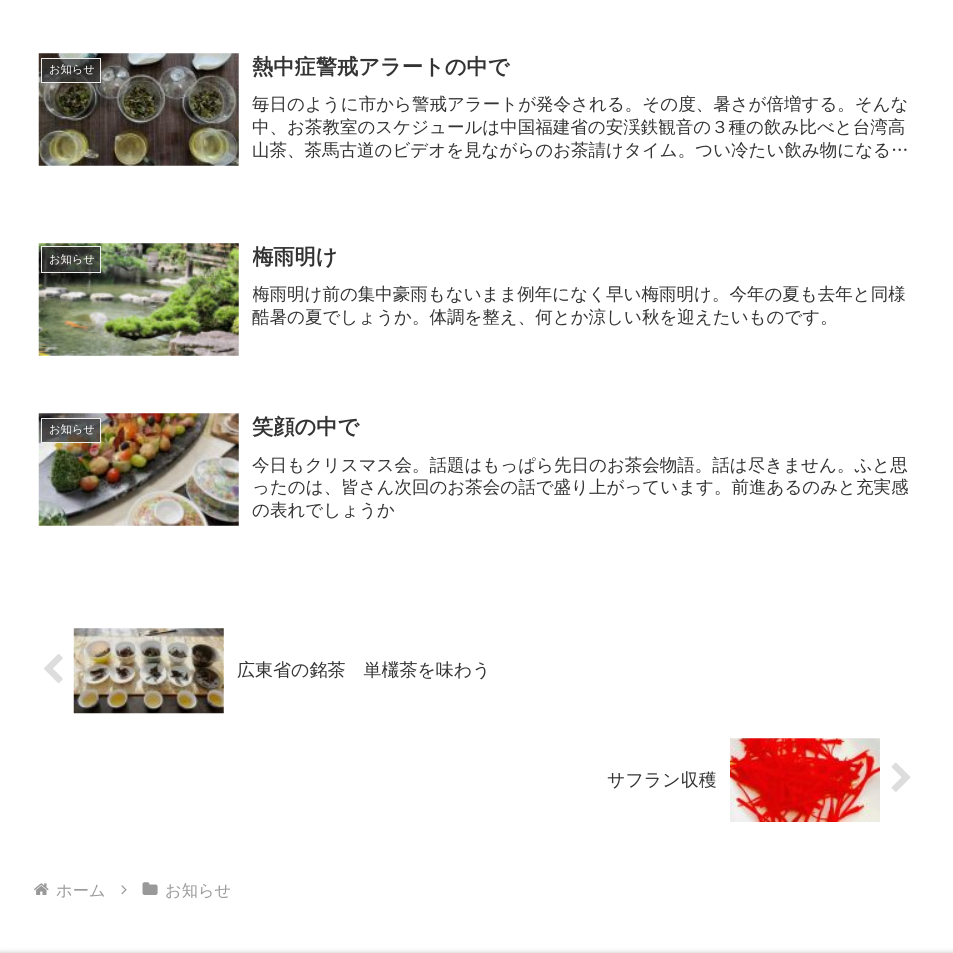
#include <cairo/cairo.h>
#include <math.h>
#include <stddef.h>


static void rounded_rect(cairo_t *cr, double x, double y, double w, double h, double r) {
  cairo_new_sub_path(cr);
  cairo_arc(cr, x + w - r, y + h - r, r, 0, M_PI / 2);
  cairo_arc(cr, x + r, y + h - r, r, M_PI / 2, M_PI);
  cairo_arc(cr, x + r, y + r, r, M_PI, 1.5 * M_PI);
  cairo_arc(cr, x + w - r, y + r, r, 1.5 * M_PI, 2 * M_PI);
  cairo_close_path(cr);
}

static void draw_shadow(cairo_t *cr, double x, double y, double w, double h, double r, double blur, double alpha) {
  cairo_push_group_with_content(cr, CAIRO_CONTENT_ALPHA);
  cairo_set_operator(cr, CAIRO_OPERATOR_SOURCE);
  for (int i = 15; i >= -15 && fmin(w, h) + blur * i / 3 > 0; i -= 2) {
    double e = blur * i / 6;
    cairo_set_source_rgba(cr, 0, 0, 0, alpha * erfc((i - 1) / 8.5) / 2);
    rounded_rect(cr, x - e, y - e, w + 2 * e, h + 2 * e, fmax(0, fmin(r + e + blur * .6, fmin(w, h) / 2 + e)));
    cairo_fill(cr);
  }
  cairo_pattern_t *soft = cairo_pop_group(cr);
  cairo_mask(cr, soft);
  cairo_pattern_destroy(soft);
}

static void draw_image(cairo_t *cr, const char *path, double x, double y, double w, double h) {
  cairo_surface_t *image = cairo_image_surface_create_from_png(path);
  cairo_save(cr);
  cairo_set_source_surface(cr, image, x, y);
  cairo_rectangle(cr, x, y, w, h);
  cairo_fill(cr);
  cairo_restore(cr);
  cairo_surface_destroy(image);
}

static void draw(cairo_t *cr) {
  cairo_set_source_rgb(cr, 1, 1, 1);
  cairo_paint(cr);
  draw_image(cr, "images/1.png", 38, 53, 201, 113);
  cairo_set_source_rgba(cr, 51 / 255.0, 51 / 255.0, 51 / 255.0, 0.7);
  cairo_rectangle(cr, 41.5, 58.5, 59, 24);
  cairo_fill_preserve(cr);
  cairo_set_source_rgb(cr, 238 / 255.0, 238 / 255.0, 238 / 255.0);
  cairo_set_line_width(cr, 1);
  cairo_stroke(cr);
  draw_image(cr, "images/2.png", 38, 243, 201, 113);
  cairo_set_source_rgba(cr, 51 / 255.0, 51 / 255.0, 51 / 255.0, 0.7);
  cairo_rectangle(cr, 41.5, 246.5, 59, 26);
  cairo_fill_preserve(cr);
  cairo_set_source_rgb(cr, 238 / 255.0, 238 / 255.0, 238 / 255.0);
  cairo_stroke(cr);
  draw_image(cr, "images/3.png", 38, 413, 201, 113);
  cairo_set_source_rgba(cr, 51 / 255.0, 51 / 255.0, 51 / 255.0, 0.7);
  cairo_rectangle(cr, 41.5, 418.5, 59, 24);
  cairo_fill_preserve(cr);
  cairo_set_source_rgb(cr, 238 / 255.0, 238 / 255.0, 238 / 255.0);
  cairo_stroke(cr);
  draw_image(cr, "images/4.png", 44, 654, 19, 29);
  draw_image(cr, "images/5.png", 73, 628, 151, 86);
  draw_image(cr, "images/6.png", 730, 738, 150, 84);
  draw_image(cr, "images/7.png", 891, 762, 20, 30);
  draw_image(cr, "images/8.png", 34, 883, 15, 12);
  draw_image(cr, "images/9.png", 121, 885, 6, 10);
  draw_image(cr, "images/10.png", 142, 882, 16, 13);
  cairo_set_source_rgb(cr, 169 / 255.0, 169 / 255.0, 169 / 255.0);
  draw_shadow(cr, 0, 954, 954, 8, 0, 3, 1);
  cairo_select_font_face(cr, "WenQuanYi Zen Hei Medium", CAIRO_FONT_SLANT_NORMAL, CAIRO_FONT_WEIGHT_NORMAL);
  cairo_set_font_size(cr, 11.25);
  cairo_set_source_rgb(cr, 1, 1, 1);
  cairo_move_to(cr, 49, 73);
  cairo_show_text(cr, "お知らせ");
  cairo_select_font_face(cr, "WenQuanYi Zen Hei", CAIRO_FONT_SLANT_NORMAL, CAIRO_FONT_WEIGHT_BOLD);
  cairo_set_font_size(cr, 21.25);
  cairo_set_source_rgb(cr, 51 / 255.0, 51 / 255.0, 51 / 255.0);
  cairo_move_to(cr, 252, 74);
  cairo_show_text(cr, "熱中症警戒アラートの中で");
  cairo_select_font_face(cr, "WenQuanYi Zen Hei Medium", CAIRO_FONT_SLANT_NORMAL, CAIRO_FONT_WEIGHT_NORMAL);
  cairo_set_font_size(cr, 17.5);
  cairo_move_to(cr, 252, 110);
  cairo_show_text(cr, "毎日のように市から警戒アラートが発令される。その度、暑さが倍増する。そんな");
  cairo_move_to(cr, 252, 133);
  cairo_show_text(cr, "中、お茶教室のスケジュールは中国福建省の安渓鉄観音の３種の飲み比べと台湾高");
  cairo_move_to(cr, 252, 156);
  cairo_show_text(cr, "山茶、茶馬古道のビデオを見ながらのお茶請けタイム。つい冷たい飲み物になる…");
  cairo_set_font_size(cr, 11.25);
  cairo_set_source_rgb(cr, 1, 1, 1);
  cairo_move_to(cr, 49, 263);
  cairo_show_text(cr, "お知らせ");
  cairo_save(cr);
  cairo_rectangle(cr, 253, 240, 662, 34);
  cairo_clip(cr);
  cairo_select_font_face(cr, "WenQuanYi Zen Hei", CAIRO_FONT_SLANT_NORMAL, CAIRO_FONT_WEIGHT_BOLD);
  cairo_set_font_size(cr, 21.25);
  cairo_set_source_rgb(cr, 51 / 255.0, 51 / 255.0, 51 / 255.0);
  cairo_move_to(cr, 252, 264);
  cairo_show_text(cr, "梅雨明け");
  cairo_restore(cr);
  cairo_save(cr);
  cairo_rectangle(cr, 253, 283, 662, 46);
  cairo_clip(cr);
  cairo_set_font_size(cr, 17.5);
  cairo_set_source_rgb(cr, 51 / 255.0, 51 / 255.0, 51 / 255.0);
  cairo_move_to(cr, 252, 300);
  cairo_show_text(cr, "梅雨明け前の集中豪雨もないまま例年になく早い梅雨明け。今年の夏も去年と同様");
  cairo_restore(cr);
  cairo_set_font_size(cr, 17.5);
  cairo_set_source_rgb(cr, 51 / 255.0, 51 / 255.0, 51 / 255.0);
  cairo_move_to(cr, 252, 323);
  cairo_show_text(cr, "酷暑の夏でしょうか。体調を整え、何とか涼しい秋を迎えたいものです。");
  cairo_set_font_size(cr, 11.25);
  cairo_set_source_rgb(cr, 1, 1, 1);
  cairo_move_to(cr, 49, 433);
  cairo_show_text(cr, "お知らせ");
  cairo_select_font_face(cr, "WenQuanYi Zen Hei", CAIRO_FONT_SLANT_NORMAL, CAIRO_FONT_WEIGHT_BOLD);
  cairo_set_font_size(cr, 21.25);
  cairo_set_source_rgb(cr, 51 / 255.0, 51 / 255.0, 51 / 255.0);
  cairo_move_to(cr, 252, 434);
  cairo_show_text(cr, "笑顔の中で");
  cairo_select_font_face(cr, "WenQuanYi Zen Hei Medium", CAIRO_FONT_SLANT_NORMAL, CAIRO_FONT_WEIGHT_NORMAL);
  cairo_set_font_size(cr, 17.5);
  cairo_move_to(cr, 252, 471);
  cairo_show_text(cr, "今日もクリスマス会。話題はもっぱら先日のお茶会物語。話は尽きません。ふと思");
  cairo_move_to(cr, 252, 493);
  cairo_show_text(cr, "ったのは、皆さん次回のお茶会の話で盛り上がっています。前進あるのみと充実感");
  cairo_move_to(cr, 252, 516);
  cairo_show_text(cr, "の表れでしょうか");
  cairo_set_font_size(cr, 18);
  cairo_move_to(cr, 237, 676);
  cairo_show_text(cr, "広東省の銘茶　単欉茶を味わう");
  cairo_move_to(cr, 607, 786);
  cairo_show_text(cr, "サフラン収穫");
  cairo_set_font_size(cr, 16.25);
  cairo_set_source_rgb(cr, 153 / 255.0, 153 / 255.0, 153 / 255.0);
  cairo_move_to(cr, 56, 896);
  cairo_show_text(cr, "ホーム");
  cairo_move_to(cr, 165, 896);
  cairo_show_text(cr, "お知らせ");
}

int main(void) {
  cairo_surface_t *surface = cairo_image_surface_create(CAIRO_FORMAT_RGB24, 953, 953);
  cairo_t *cr = cairo_create(surface);
  cairo_font_options_t *options = cairo_font_options_create();
  cairo_font_options_set_hint_metrics(options, CAIRO_HINT_METRICS_OFF);
  cairo_font_options_set_hint_style(options, CAIRO_HINT_STYLE_NONE);
  cairo_set_font_options(cr, options);
  cairo_set_miter_limit(cr, 4);
  draw(cr);
  cairo_surface_write_to_png(surface, "out.png");
  cairo_font_options_destroy(options);
  cairo_destroy(cr);
  cairo_surface_destroy(surface);
  return 0;
}
